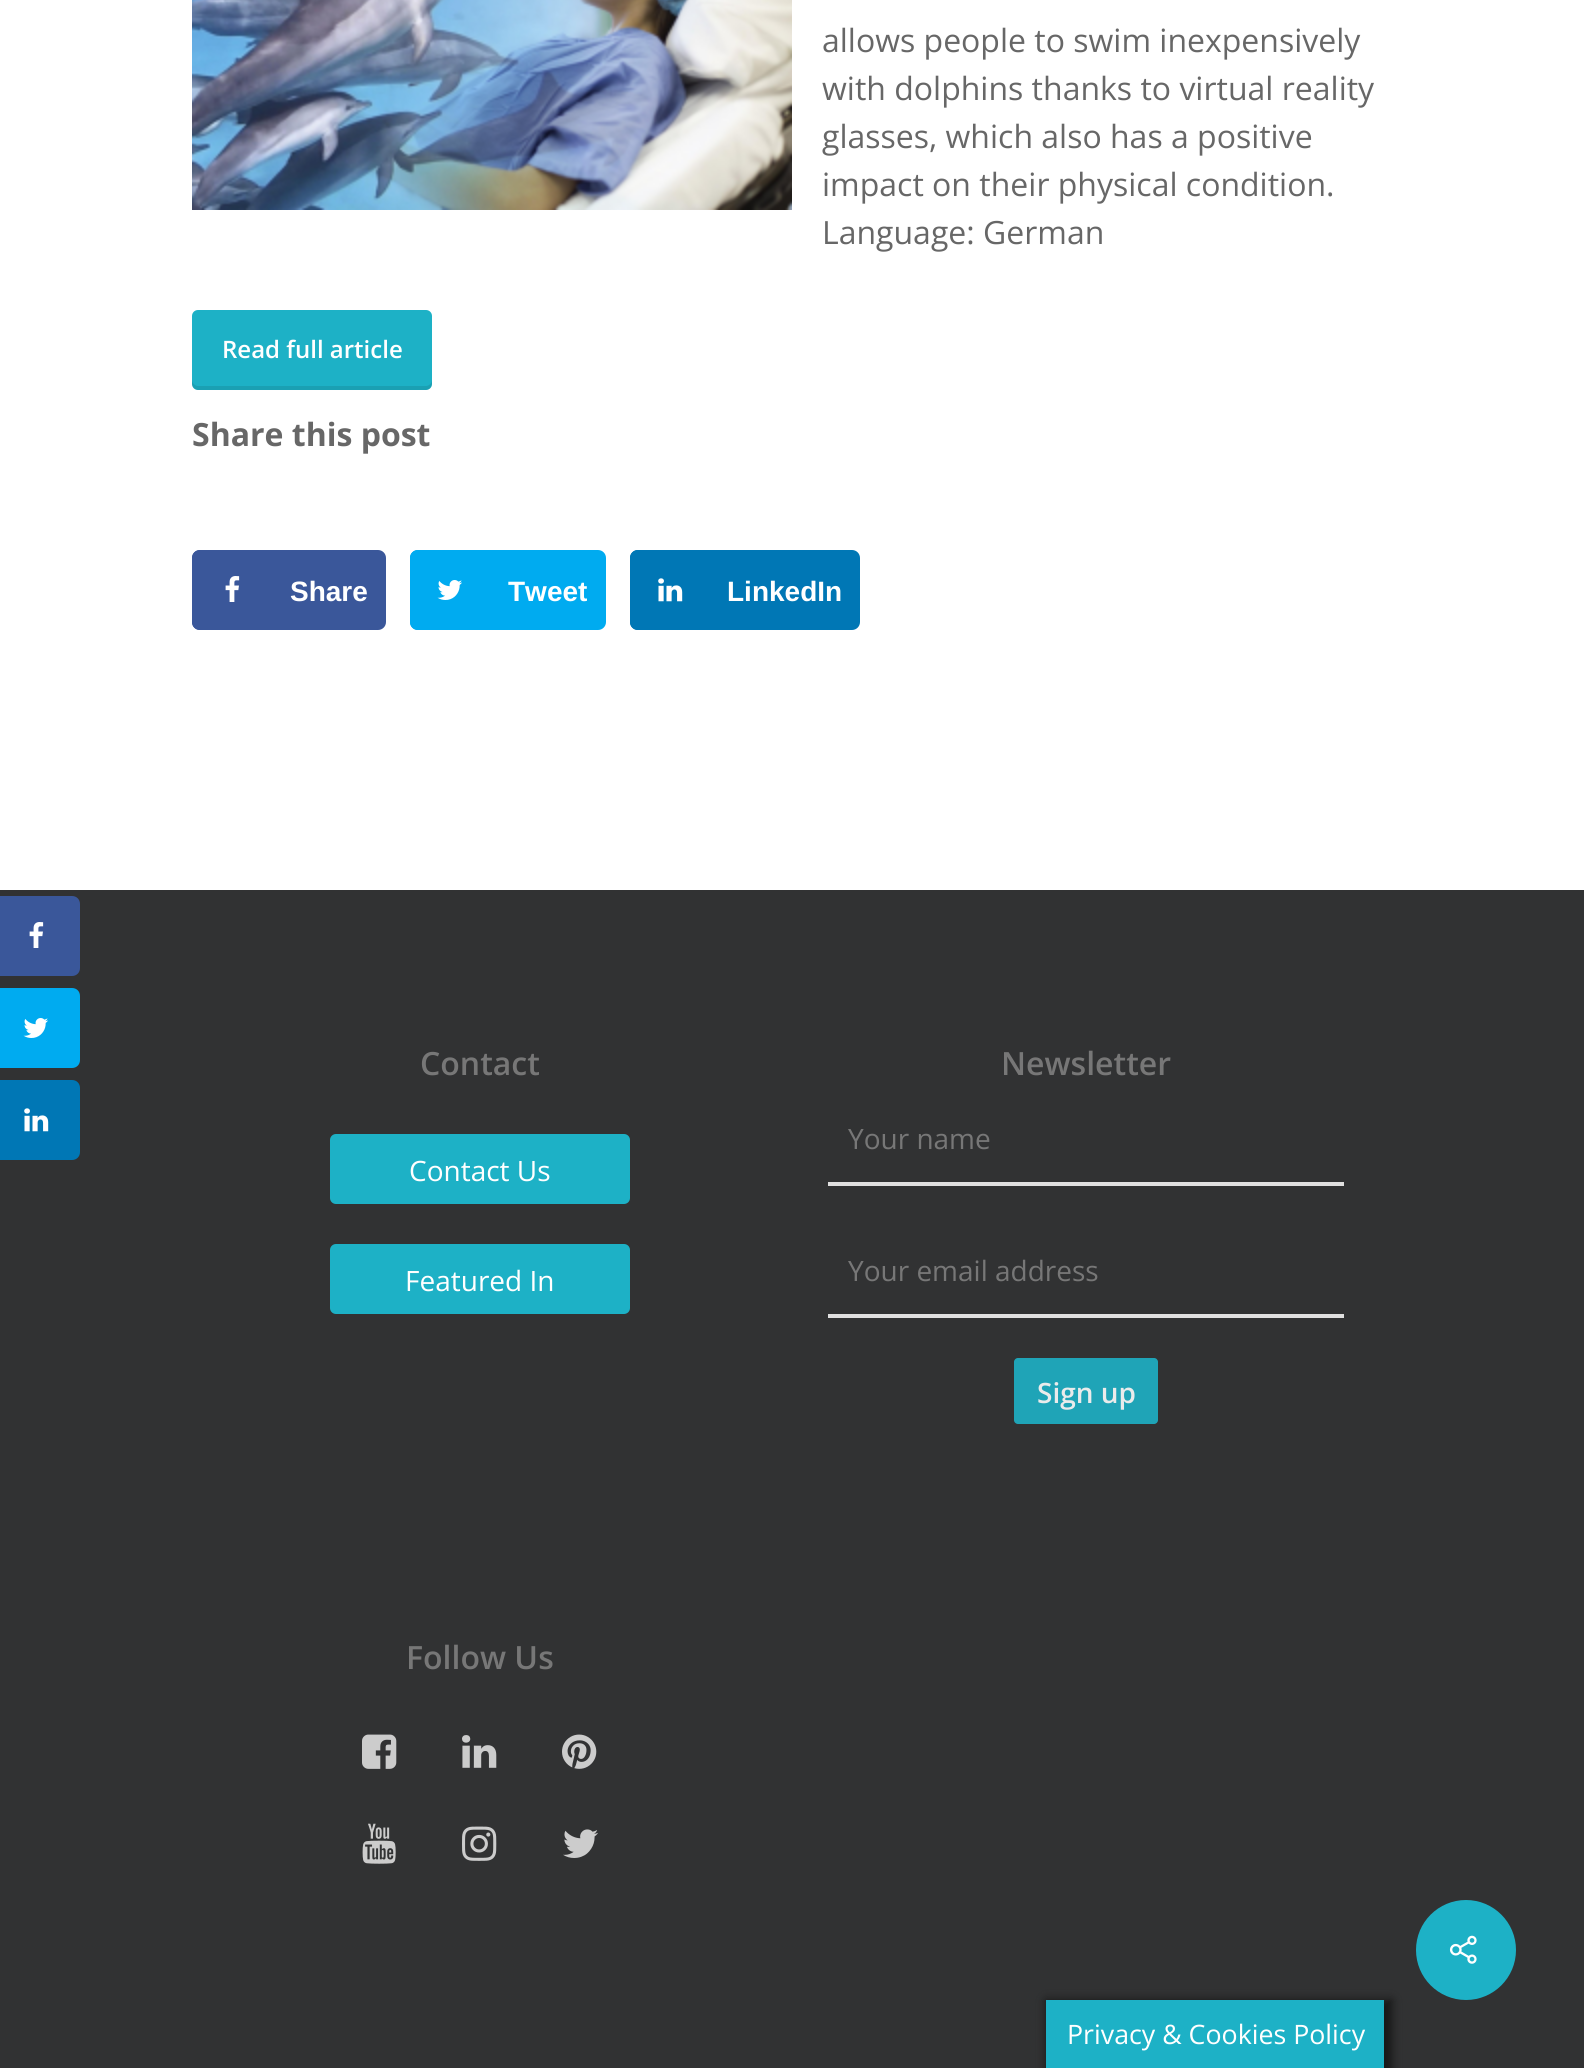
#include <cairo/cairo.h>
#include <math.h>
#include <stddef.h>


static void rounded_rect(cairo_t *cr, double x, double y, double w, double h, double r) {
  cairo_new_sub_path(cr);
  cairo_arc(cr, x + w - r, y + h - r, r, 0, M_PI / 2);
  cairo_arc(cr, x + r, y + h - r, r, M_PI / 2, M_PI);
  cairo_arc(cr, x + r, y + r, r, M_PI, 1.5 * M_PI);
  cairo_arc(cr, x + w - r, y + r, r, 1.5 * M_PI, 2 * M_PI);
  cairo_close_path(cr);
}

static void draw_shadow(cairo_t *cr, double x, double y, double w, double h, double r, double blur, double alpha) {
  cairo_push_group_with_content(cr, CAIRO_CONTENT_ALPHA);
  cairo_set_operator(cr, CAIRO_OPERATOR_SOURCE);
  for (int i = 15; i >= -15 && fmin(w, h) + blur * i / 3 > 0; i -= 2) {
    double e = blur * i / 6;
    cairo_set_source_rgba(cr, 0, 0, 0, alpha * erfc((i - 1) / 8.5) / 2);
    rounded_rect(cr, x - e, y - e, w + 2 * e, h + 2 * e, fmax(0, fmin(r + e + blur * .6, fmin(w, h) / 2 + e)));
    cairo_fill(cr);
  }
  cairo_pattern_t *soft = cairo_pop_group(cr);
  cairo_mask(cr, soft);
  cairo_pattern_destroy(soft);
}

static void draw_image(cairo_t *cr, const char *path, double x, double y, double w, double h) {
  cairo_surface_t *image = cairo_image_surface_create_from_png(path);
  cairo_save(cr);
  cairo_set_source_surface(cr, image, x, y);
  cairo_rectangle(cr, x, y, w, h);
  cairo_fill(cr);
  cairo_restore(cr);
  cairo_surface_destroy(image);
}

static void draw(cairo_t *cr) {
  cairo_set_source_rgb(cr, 1, 1, 1);
  cairo_paint(cr);
  cairo_set_source_rgb(cr, 49 / 255.0, 50 / 255.0, 51 / 255.0);
  cairo_rectangle(cr, 0, 890, 1584, 1178);
  cairo_fill(cr);
  cairo_set_source_rgb(cr, 58 / 255.0, 87 / 255.0, 154 / 255.0);
  cairo_new_path(cr);
  cairo_move_to(cr, 2, 898);
  cairo_line_to(cr, 72, 898);
  cairo_curve_to(cr, 75.5, 898, 78, 900.5, 78, 904);
  cairo_line_to(cr, 78, 968);
  cairo_curve_to(cr, 78, 971.5, 75.5, 974, 72, 974);
  cairo_line_to(cr, 2, 974);
  cairo_close_path(cr);
  cairo_fill_preserve(cr);
  cairo_set_line_width(cr, 4);
  cairo_stroke(cr);
  draw_image(cr, "images/1.png", 29, 922, 15, 26);
  cairo_set_source_rgb(cr, 0, 171 / 255.0, 240 / 255.0);
  cairo_new_path(cr);
  cairo_move_to(cr, 2, 990);
  cairo_line_to(cr, 72, 990);
  cairo_curve_to(cr, 75.5, 990, 78, 992.5, 78, 996);
  cairo_line_to(cr, 78, 1060);
  cairo_curve_to(cr, 78, 1063.5, 75.5, 1066, 72, 1066);
  cairo_line_to(cr, 2, 1066);
  cairo_close_path(cr);
  cairo_fill_preserve(cr);
  cairo_stroke(cr);
  draw_image(cr, "images/2.png", 23, 1018, 25, 20);
  cairo_set_source_rgb(cr, 0, 119 / 255.0, 181 / 255.0);
  cairo_new_path(cr);
  cairo_move_to(cr, 2, 1082);
  cairo_line_to(cr, 72, 1082);
  cairo_curve_to(cr, 75.5, 1082, 78, 1084.5, 78, 1088);
  cairo_line_to(cr, 78, 1152);
  cairo_curve_to(cr, 78, 1155.5, 75.5, 1158, 72, 1158);
  cairo_line_to(cr, 2, 1158);
  cairo_close_path(cr);
  cairo_fill_preserve(cr);
  cairo_stroke(cr);
  draw_image(cr, "images/3.png", 24, 1108, 25, 24);
  draw_image(cr, "images/4.png", 192, 0, 600, 210);
  cairo_set_source_rgb(cr, 29 / 255.0, 177 / 255.0, 198 / 255.0);
  rounded_rect(cr, 192, 310, 240, 80, 6);
  cairo_fill(cr);
  cairo_set_source_rgba(cr, 0, 0, 0, 0.1);
  cairo_new_path(cr);
  cairo_move_to(cr, 192, 380);
  cairo_line_to(cr, 192, 384);
  cairo_curve_to(cr, 192, 387, 195, 390, 198, 390);
  cairo_line_to(cr, 426, 390);
  cairo_curve_to(cr, 429, 390, 432, 387, 432, 384);
  cairo_line_to(cr, 432, 380);
  cairo_curve_to(cr, 432, 383, 429, 386, 426, 386);
  cairo_line_to(cr, 198, 386);
  cairo_curve_to(cr, 195, 386, 192, 383, 192, 380);
  cairo_close_path(cr);
  cairo_fill(cr);
  cairo_set_source_rgb(cr, 58 / 255.0, 87 / 255.0, 154 / 255.0);
  rounded_rect(cr, 194, 552, 190, 76, 6);
  cairo_fill_preserve(cr);
  cairo_stroke(cr);
  cairo_new_path(cr);
  cairo_move_to(cr, 200, 552);
  cairo_line_to(cr, 270, 552);
  cairo_line_to(cr, 270, 628);
  cairo_line_to(cr, 200, 628);
  cairo_curve_to(cr, 196.5, 628, 194, 625.5, 194, 622);
  cairo_line_to(cr, 194, 558);
  cairo_curve_to(cr, 194, 554.5, 196.5, 552, 200, 552);
  cairo_close_path(cr);
  cairo_fill_preserve(cr);
  cairo_stroke(cr);
  draw_image(cr, "images/1.png", 225, 576, 15, 26);
  cairo_set_source_rgb(cr, 0, 171 / 255.0, 240 / 255.0);
  rounded_rect(cr, 412, 552, 192, 76, 6);
  cairo_fill_preserve(cr);
  cairo_stroke(cr);
  cairo_new_path(cr);
  cairo_move_to(cr, 418, 552);
  cairo_line_to(cr, 488, 552);
  cairo_line_to(cr, 488, 628);
  cairo_line_to(cr, 418, 628);
  cairo_curve_to(cr, 414.5, 628, 412, 625.5, 412, 622);
  cairo_line_to(cr, 412, 558);
  cairo_curve_to(cr, 412, 554.5, 414.5, 552, 418, 552);
  cairo_close_path(cr);
  cairo_fill_preserve(cr);
  cairo_stroke(cr);
  draw_image(cr, "images/2.png", 437, 580, 25, 20);
  cairo_set_source_rgb(cr, 0, 119 / 255.0, 181 / 255.0);
  rounded_rect(cr, 632, 552, 226, 76, 6);
  cairo_fill_preserve(cr);
  cairo_stroke(cr);
  cairo_new_path(cr);
  cairo_move_to(cr, 638, 552);
  cairo_line_to(cr, 708, 552);
  cairo_line_to(cr, 708, 628);
  cairo_line_to(cr, 638, 628);
  cairo_curve_to(cr, 634.5, 628, 632, 625.5, 632, 622);
  cairo_line_to(cr, 632, 558);
  cairo_curve_to(cr, 632, 554.5, 634.5, 552, 638, 552);
  cairo_close_path(cr);
  cairo_fill_preserve(cr);
  cairo_stroke(cr);
  draw_image(cr, "images/3.png", 658, 578, 25, 24);
  cairo_set_source_rgb(cr, 29 / 255.0, 177 / 255.0, 198 / 255.0);
  rounded_rect(cr, 330, 1134, 300, 70, 6);
  cairo_fill(cr);
  rounded_rect(cr, 330, 1244, 300, 70, 6);
  cairo_fill(cr);
  cairo_set_source_rgb(cr, 224 / 255.0, 224 / 255.0, 224 / 255.0);
  cairo_rectangle(cr, 828, 1182, 516, 4);
  cairo_fill(cr);
  cairo_rectangle(cr, 828, 1314, 516, 4);
  cairo_fill(cr);
  cairo_set_source_rgb(cr, 31 / 255.0, 164 / 255.0, 183 / 255.0);
  rounded_rect(cr, 1014, 1358, 144, 66, 4);
  cairo_fill(cr);
  draw_image(cr, "images/5.png", 362, 1734, 35, 35);
  draw_image(cr, "images/6.png", 462, 1735, 35, 33);
  draw_image(cr, "images/7.png", 562, 1734, 35, 35);
  draw_image(cr, "images/8.png", 362, 1823, 34, 41);
  draw_image(cr, "images/9.png", 462, 1826, 35, 35);
  draw_image(cr, "images/10.png", 563, 1829, 35, 29);
  cairo_set_source_rgb(cr, 29 / 255.0, 177 / 255.0, 198 / 255.0);
  cairo_arc(cr, 1466, 1950, 50, 0, 2 * M_PI);
  cairo_fill(cr);
  draw_image(cr, "images/11.png", 1449, 1935, 28, 29);
  cairo_set_source_rgb(cr, 22 / 255.0, 22 / 255.0, 22 / 255.0);
  draw_shadow(cr, 1046, 2000, 346, 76, 0, 5, 1);
  cairo_set_source_rgb(cr, 29 / 255.0, 177 / 255.0, 198 / 255.0);
  cairo_rectangle(cr, 1046, 2000, 338, 68);
  cairo_fill(cr);
  cairo_select_font_face(cr, "Open Sans", CAIRO_FONT_SLANT_NORMAL, CAIRO_FONT_WEIGHT_NORMAL);
  cairo_set_font_size(cr, 32);
  cairo_set_source_rgb(cr, 103 / 255.0, 103 / 255.0, 103 / 255.0);
  cairo_move_to(cr, 822, 52);
  cairo_show_text(cr, "allows people to swim inexpensively");
  cairo_move_to(cr, 822, 100);
  cairo_show_text(cr, "with dolphins thanks to virtual reality");
  cairo_move_to(cr, 822, 148);
  cairo_show_text(cr, "glasses, which also has a positive");
  cairo_move_to(cr, 822, 196);
  cairo_show_text(cr, "impact on their physical condition.");
  cairo_move_to(cr, 822, 244);
  cairo_show_text(cr, "Language: German");
  cairo_select_font_face(cr, "Open Sans SemiBold", CAIRO_FONT_SLANT_NORMAL, CAIRO_FONT_WEIGHT_NORMAL);
  cairo_set_font_size(cr, 24);
  cairo_set_source_rgb(cr, 1, 1, 1);
  cairo_move_to(cr, 222, 358);
  cairo_show_text(cr, "Read full article");
  cairo_select_font_face(cr, "Open Sans", CAIRO_FONT_SLANT_NORMAL, CAIRO_FONT_WEIGHT_BOLD);
  cairo_set_font_size(cr, 32);
  cairo_set_source_rgb(cr, 103 / 255.0, 103 / 255.0, 103 / 255.0);
  cairo_move_to(cr, 192, 446);
  cairo_show_text(cr, "Share this post");
  cairo_select_font_face(cr, "Liberation Sans", CAIRO_FONT_SLANT_NORMAL, CAIRO_FONT_WEIGHT_BOLD);
  cairo_set_font_size(cr, 28);
  cairo_set_source_rgb(cr, 1, 1, 1);
  cairo_move_to(cr, 290, 601);
  cairo_show_text(cr, "Share");
  cairo_move_to(cr, 508, 601);
  cairo_show_text(cr, "Tweet");
  cairo_move_to(cr, 727, 601);
  cairo_show_text(cr, "LinkedIn");
  cairo_select_font_face(cr, "Open Sans SemiBold", CAIRO_FONT_SLANT_NORMAL, CAIRO_FONT_WEIGHT_NORMAL);
  cairo_set_font_size(cr, 32);
  cairo_set_source_rgb(cr, 119 / 255.0, 119 / 255.0, 119 / 255.0);
  cairo_move_to(cr, 420, 1075);
  cairo_show_text(cr, "Contact");
  cairo_select_font_face(cr, "Open Sans", CAIRO_FONT_SLANT_NORMAL, CAIRO_FONT_WEIGHT_NORMAL);
  cairo_set_font_size(cr, 28);
  cairo_set_source_rgb(cr, 1, 1, 1);
  cairo_move_to(cr, 409, 1181);
  cairo_show_text(cr, "Contact Us");
  cairo_move_to(cr, 405, 1291);
  cairo_show_text(cr, "Featured In");
  cairo_select_font_face(cr, "Open Sans SemiBold", CAIRO_FONT_SLANT_NORMAL, CAIRO_FONT_WEIGHT_NORMAL);
  cairo_set_font_size(cr, 32);
  cairo_set_source_rgb(cr, 119 / 255.0, 119 / 255.0, 119 / 255.0);
  cairo_move_to(cr, 1001, 1075);
  cairo_show_text(cr, "Newsletter");
  cairo_select_font_face(cr, "Open Sans", CAIRO_FONT_SLANT_NORMAL, CAIRO_FONT_WEIGHT_NORMAL);
  cairo_set_font_size(cr, 28);
  cairo_move_to(cr, 848, 1149);
  cairo_show_text(cr, "Your name");
  cairo_move_to(cr, 848, 1281);
  cairo_show_text(cr, "Your email address");
  cairo_select_font_face(cr, "Open Sans SemiBold", CAIRO_FONT_SLANT_NORMAL, CAIRO_FONT_WEIGHT_NORMAL);
  cairo_set_source_rgb(cr, 234 / 255.0, 235 / 255.0, 235 / 255.0);
  cairo_move_to(cr, 1037, 1403);
  cairo_show_text(cr, "Sign up");
  cairo_set_font_size(cr, 32);
  cairo_set_source_rgb(cr, 119 / 255.0, 119 / 255.0, 119 / 255.0);
  cairo_move_to(cr, 406, 1669);
  cairo_show_text(cr, "Follow Us");
  cairo_select_font_face(cr, "Open Sans", CAIRO_FONT_SLANT_NORMAL, CAIRO_FONT_WEIGHT_NORMAL);
  cairo_set_font_size(cr, 26.75);
  cairo_set_source_rgb(cr, 1, 1, 1);
  cairo_move_to(cr, 1067, 2044);
  cairo_show_text(cr, "Privacy & Cookies Policy");
}

int main(void) {
  cairo_surface_t *surface = cairo_image_surface_create(CAIRO_FORMAT_RGB24, 1584, 2068);
  cairo_t *cr = cairo_create(surface);
  cairo_font_options_t *options = cairo_font_options_create();
  cairo_font_options_set_hint_metrics(options, CAIRO_HINT_METRICS_OFF);
  cairo_font_options_set_hint_style(options, CAIRO_HINT_STYLE_NONE);
  cairo_set_font_options(cr, options);
  cairo_set_miter_limit(cr, 4);
  draw(cr);
  cairo_surface_write_to_png(surface, "out.png");
  cairo_font_options_destroy(options);
  cairo_destroy(cr);
  cairo_surface_destroy(surface);
  return 0;
}
